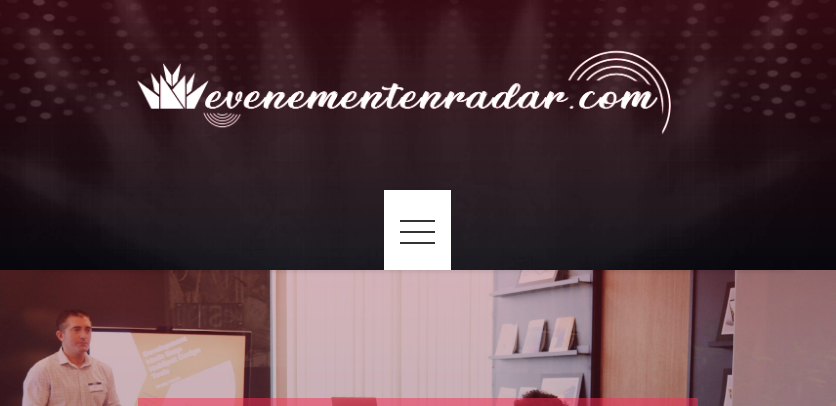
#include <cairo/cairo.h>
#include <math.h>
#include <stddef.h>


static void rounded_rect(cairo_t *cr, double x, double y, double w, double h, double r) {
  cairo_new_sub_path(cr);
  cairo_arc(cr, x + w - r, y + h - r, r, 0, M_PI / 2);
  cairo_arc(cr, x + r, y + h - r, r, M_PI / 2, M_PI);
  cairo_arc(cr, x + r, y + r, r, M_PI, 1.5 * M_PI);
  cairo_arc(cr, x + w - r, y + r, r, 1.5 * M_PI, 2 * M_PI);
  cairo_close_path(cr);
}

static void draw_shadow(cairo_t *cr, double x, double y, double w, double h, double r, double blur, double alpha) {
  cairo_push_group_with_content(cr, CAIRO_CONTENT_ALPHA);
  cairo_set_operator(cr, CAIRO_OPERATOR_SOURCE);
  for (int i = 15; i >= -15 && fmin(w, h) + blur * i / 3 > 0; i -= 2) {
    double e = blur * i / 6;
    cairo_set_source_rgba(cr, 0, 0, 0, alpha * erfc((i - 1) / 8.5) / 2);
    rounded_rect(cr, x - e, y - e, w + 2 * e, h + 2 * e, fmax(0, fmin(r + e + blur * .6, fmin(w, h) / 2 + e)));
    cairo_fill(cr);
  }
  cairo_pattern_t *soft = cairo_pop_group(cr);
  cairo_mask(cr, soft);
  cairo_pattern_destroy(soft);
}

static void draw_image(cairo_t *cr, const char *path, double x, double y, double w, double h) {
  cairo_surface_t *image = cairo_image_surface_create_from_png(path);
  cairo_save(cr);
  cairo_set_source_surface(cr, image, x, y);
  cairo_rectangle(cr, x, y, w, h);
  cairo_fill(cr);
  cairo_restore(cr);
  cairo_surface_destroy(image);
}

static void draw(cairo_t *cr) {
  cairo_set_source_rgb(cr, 1, 1, 1);
  cairo_paint(cr);
  draw_image(cr, "images/1.png", 0, 0, 836, 270);
  draw_image(cr, "images/2.png", 136, 50, 535, 85);
  draw_image(cr, "images/3.png", 0, 270, 836, 136);
  cairo_save(cr);
  cairo_set_fill_rule(cr, CAIRO_FILL_RULE_EVEN_ODD);
  cairo_new_path(cr);
  cairo_move_to(cr, 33, 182);
  cairo_line_to(cr, 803, 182);
  cairo_line_to(cr, 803, 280);
  cairo_line_to(cr, 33, 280);
  cairo_close_path(cr);
  cairo_move_to(cr, 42, 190);
  cairo_line_to(cr, 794, 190);
  cairo_line_to(cr, 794, 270);
  cairo_line_to(cr, 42, 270);
  cairo_close_path(cr);
  cairo_clip(cr);
  cairo_set_source_rgb(cr, 0, 0, 0);
  draw_shadow(cr, 42, 191, 752, 80, 0, 2.5, 0.11);
  cairo_restore(cr);
  cairo_set_source_rgb(cr, 1, 1, 1);
  cairo_rectangle(cr, 384, 190, 67, 80);
  cairo_fill(cr);
  cairo_set_source_rgb(cr, 51 / 255.0, 51 / 255.0, 51 / 255.0);
  cairo_rectangle(cr, 400, 220, 35, 2);
  cairo_fill(cr);
  cairo_rectangle(cr, 400, 231, 35, 2);
  cairo_fill(cr);
  cairo_rectangle(cr, 400, 242, 35, 2);
  cairo_fill(cr);
}

int main(void) {
  cairo_surface_t *surface = cairo_image_surface_create(CAIRO_FORMAT_RGB24, 836, 406);
  cairo_t *cr = cairo_create(surface);
  cairo_font_options_t *options = cairo_font_options_create();
  cairo_font_options_set_hint_metrics(options, CAIRO_HINT_METRICS_OFF);
  cairo_font_options_set_hint_style(options, CAIRO_HINT_STYLE_NONE);
  cairo_set_font_options(cr, options);
  cairo_set_miter_limit(cr, 4);
  draw(cr);
  cairo_surface_write_to_png(surface, "out.png");
  cairo_font_options_destroy(options);
  cairo_destroy(cr);
  cairo_surface_destroy(surface);
  return 0;
}
